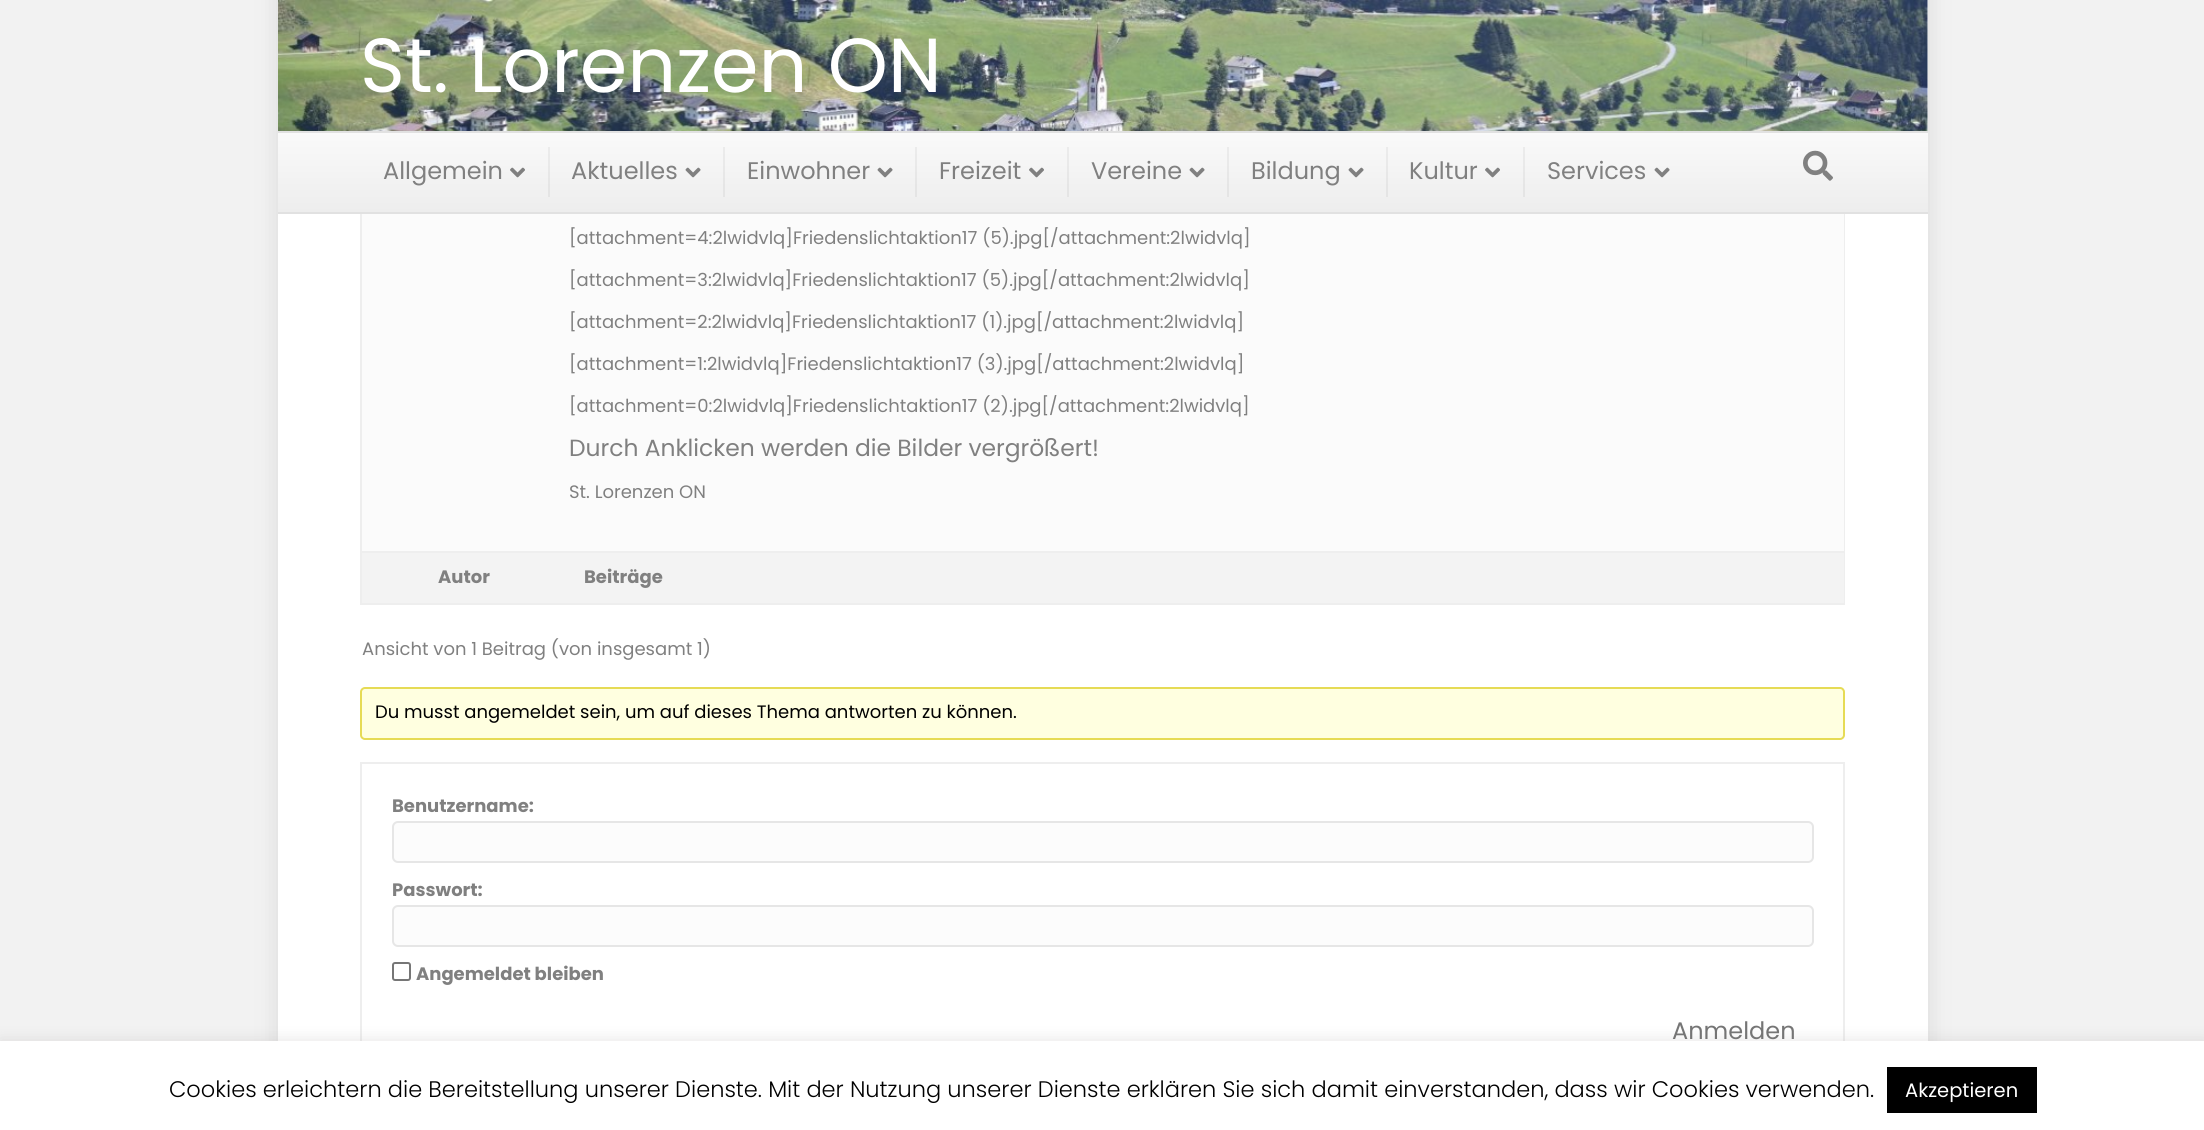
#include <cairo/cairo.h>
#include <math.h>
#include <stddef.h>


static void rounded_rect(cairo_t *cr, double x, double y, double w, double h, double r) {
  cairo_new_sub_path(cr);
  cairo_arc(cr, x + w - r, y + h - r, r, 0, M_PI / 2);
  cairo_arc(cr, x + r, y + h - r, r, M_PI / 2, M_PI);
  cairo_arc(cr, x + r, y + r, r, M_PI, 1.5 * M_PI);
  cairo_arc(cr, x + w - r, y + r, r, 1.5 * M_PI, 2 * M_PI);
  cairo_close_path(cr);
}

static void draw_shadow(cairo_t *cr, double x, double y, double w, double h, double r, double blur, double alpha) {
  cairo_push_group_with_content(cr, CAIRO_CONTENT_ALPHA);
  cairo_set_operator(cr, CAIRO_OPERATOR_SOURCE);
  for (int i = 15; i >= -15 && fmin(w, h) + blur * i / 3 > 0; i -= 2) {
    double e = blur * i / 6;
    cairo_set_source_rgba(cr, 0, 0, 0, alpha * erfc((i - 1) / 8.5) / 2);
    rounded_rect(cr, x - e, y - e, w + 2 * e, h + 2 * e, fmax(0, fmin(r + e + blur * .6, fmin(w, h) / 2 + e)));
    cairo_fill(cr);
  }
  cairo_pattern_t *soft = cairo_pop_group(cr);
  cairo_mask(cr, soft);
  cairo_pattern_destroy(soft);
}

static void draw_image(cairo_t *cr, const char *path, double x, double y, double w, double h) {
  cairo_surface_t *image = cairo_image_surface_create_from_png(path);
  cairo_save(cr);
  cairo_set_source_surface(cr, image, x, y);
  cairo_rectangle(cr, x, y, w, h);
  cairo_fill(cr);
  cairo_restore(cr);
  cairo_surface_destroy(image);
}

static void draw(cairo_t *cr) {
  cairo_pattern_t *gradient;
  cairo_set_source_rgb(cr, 242 / 255.0, 242 / 255.0, 242 / 255.0);
  cairo_paint(cr);
  cairo_set_source_rgb(cr, 217 / 255.0, 217 / 255.0, 217 / 255.0);
  draw_shadow(cr, 278, -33, 1650, 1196, 0, 11, 1);
  cairo_set_source_rgb(cr, 1, 1, 1);
  cairo_rectangle(cr, 278, 0, 1650, 1041);
  cairo_fill(cr);
  cairo_rectangle(cr, 361, -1, 1483, 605);
  cairo_set_source_rgb(cr, 238 / 255.0, 238 / 255.0, 238 / 255.0);
  cairo_stroke(cr);
  draw_image(cr, "images/1.png", 278, 0, 1650, 131);
  gradient = cairo_pattern_create_linear(1103, 132, 1103, 212);
  cairo_pattern_add_color_stop_rgba(gradient, 0, 250 / 255.0, 250 / 255.0, 250 / 255.0, 1);
  cairo_pattern_add_color_stop_rgba(gradient, 1, 237 / 255.0, 237 / 255.0, 237 / 255.0, 1);
  cairo_set_source(cr, gradient);
  cairo_pattern_destroy(gradient);
  cairo_rectangle(cr, 278, 133, 1650, 79);
  cairo_fill(cr);
  cairo_set_source_rgb(cr, 225 / 255.0, 225 / 255.0, 225 / 255.0);
  cairo_rectangle(cr, 278, 131, 1650, 2);
  cairo_fill(cr);
  cairo_rectangle(cr, 278, 212, 1650, 2);
  cairo_fill(cr);
  cairo_set_source_rgba(cr, 128 / 255.0, 128 / 255.0, 128 / 255.0, 0.1);
  cairo_rectangle(cr, 548, 147, 2, 50);
  cairo_fill(cr);
  draw_image(cr, "images/2.png", 510, 167, 15, 11);
  cairo_rectangle(cr, 723, 147, 2, 50);
  cairo_fill(cr);
  draw_image(cr, "images/3.png", 685, 167, 16, 11);
  cairo_rectangle(cr, 915, 147, 2, 50);
  cairo_fill(cr);
  draw_image(cr, "images/3.png", 877, 167, 16, 11);
  cairo_rectangle(cr, 1067, 147, 2, 50);
  cairo_fill(cr);
  draw_image(cr, "images/2.png", 1029, 167, 15, 11);
  cairo_rectangle(cr, 1227, 147, 2, 50);
  cairo_fill(cr);
  draw_image(cr, "images/3.png", 1189, 167, 16, 11);
  cairo_rectangle(cr, 1386, 147, 2, 50);
  cairo_fill(cr);
  draw_image(cr, "images/3.png", 1348, 167, 16, 11);
  cairo_rectangle(cr, 1523, 147, 2, 50);
  cairo_fill(cr);
  draw_image(cr, "images/2.png", 1485, 167, 15, 11);
  draw_image(cr, "images/3.png", 1654, 167, 16, 11);
  draw_image(cr, "images/4.png", 1803, 150, 30, 31);
  cairo_set_source_rgb(cr, 251 / 255.0, 251 / 255.0, 251 / 255.0);
  cairo_rectangle(cr, 362, 214, 1482, 337);
  cairo_fill(cr);
  cairo_set_source_rgb(cr, 243 / 255.0, 243 / 255.0, 243 / 255.0);
  cairo_rectangle(cr, 362, 553, 1482, 50);
  cairo_fill(cr);
  cairo_set_source_rgb(cr, 238 / 255.0, 238 / 255.0, 238 / 255.0);
  cairo_rectangle(cr, 362, 551, 1482, 2);
  cairo_fill(cr);
  cairo_set_source_rgb(cr, 1, 1, 224 / 255.0);
  rounded_rect(cr, 361, 688, 1483, 51, 4);
  cairo_fill_preserve(cr);
  cairo_set_source_rgb(cr, 230 / 255.0, 219 / 255.0, 85 / 255.0);
  cairo_stroke(cr);
  cairo_rectangle(cr, 361, 763, 1483, 307);
  cairo_set_source_rgb(cr, 238 / 255.0, 238 / 255.0, 238 / 255.0);
  cairo_stroke(cr);
  cairo_set_source_rgb(cr, 252 / 255.0, 252 / 255.0, 252 / 255.0);
  rounded_rect(cr, 393, 822, 1420, 40, 5);
  cairo_fill_preserve(cr);
  cairo_set_source_rgb(cr, 230 / 255.0, 230 / 255.0, 230 / 255.0);
  cairo_stroke(cr);
  cairo_set_source_rgb(cr, 252 / 255.0, 252 / 255.0, 252 / 255.0);
  rounded_rect(cr, 393, 906, 1420, 40, 5);
  cairo_fill_preserve(cr);
  cairo_set_source_rgb(cr, 230 / 255.0, 230 / 255.0, 230 / 255.0);
  cairo_stroke(cr);
  rounded_rect(cr, 393, 963, 17, 17, 2);
  cairo_set_source_rgb(cr, 118 / 255.0, 118 / 255.0, 118 / 255.0);
  cairo_stroke(cr);
  cairo_set_source_rgb(cr, 172 / 255.0, 171 / 255.0, 171 / 255.0);
  draw_shadow(cr, 0, 1040, 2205, 90, 0, 7.5, 0.3);
  cairo_set_source_rgb(cr, 1, 1, 1);
  cairo_rectangle(cr, 0, 1041, 2204, 89);
  cairo_fill(cr);
  cairo_set_source_rgb(cr, 0, 0, 0);
  cairo_rectangle(cr, 1887, 1067, 150, 46);
  cairo_fill(cr);
  cairo_select_font_face(cr, "Poppins", CAIRO_FONT_SLANT_NORMAL, CAIRO_FONT_WEIGHT_NORMAL);
  cairo_set_font_size(cr, 76.5);
  cairo_set_source_rgb(cr, 1, 1, 1);
  cairo_move_to(cr, 360, 92);
  cairo_show_text(cr, "St. Lorenzen ON");
  cairo_set_font_size(cr, 24);
  cairo_set_source_rgb(cr, 128 / 255.0, 128 / 255.0, 128 / 255.0);
  cairo_move_to(cr, 383, 179);
  cairo_show_text(cr, "Allgemein");
  cairo_move_to(cr, 571, 179);
  cairo_show_text(cr, "Aktuelles");
  cairo_move_to(cr, 747, 179);
  cairo_show_text(cr, "Einwohner");
  cairo_move_to(cr, 939, 179);
  cairo_show_text(cr, "Freizeit");
  cairo_move_to(cr, 1091, 179);
  cairo_show_text(cr, "Vereine");
  cairo_move_to(cr, 1251, 179);
  cairo_show_text(cr, "Bildung");
  cairo_move_to(cr, 1409, 179);
  cairo_show_text(cr, "Kultur");
  cairo_move_to(cr, 1547, 179);
  cairo_show_text(cr, "Services");
  cairo_set_font_size(cr, 18);
  cairo_move_to(cr, 569, 244);
  cairo_show_text(cr, "[attachment=4:2lwidvlq]Friedenslichtaktion17 (5).jpg[/attachment:2lwidvlq]");
  cairo_move_to(cr, 569, 286);
  cairo_show_text(cr, "[attachment=3:2lwidvlq]Friedenslichtaktion17 (5).jpg[/attachment:2lwidvlq]");
  cairo_move_to(cr, 569, 328);
  cairo_show_text(cr, "[attachment=2:2lwidvlq]Friedenslichtaktion17 (1).jpg[/attachment:2lwidvlq]");
  cairo_move_to(cr, 569, 370);
  cairo_show_text(cr, "[attachment=1:2lwidvlq]Friedenslichtaktion17 (3).jpg[/attachment:2lwidvlq]");
  cairo_move_to(cr, 569, 412);
  cairo_show_text(cr, "[attachment=0:2lwidvlq]Friedenslichtaktion17 (2).jpg[/attachment:2lwidvlq]");
  cairo_set_font_size(cr, 23.4);
  cairo_move_to(cr, 569, 456);
  cairo_show_text(cr, "Durch Anklicken werden die Bilder vergrößert!");
  cairo_set_font_size(cr, 18);
  cairo_move_to(cr, 569, 498);
  cairo_show_text(cr, "St. Lorenzen ON");
  cairo_select_font_face(cr, "Poppins", CAIRO_FONT_SLANT_NORMAL, CAIRO_FONT_WEIGHT_BOLD);
  cairo_move_to(cr, 438, 583);
  cairo_show_text(cr, "Autor");
  cairo_move_to(cr, 584, 583);
  cairo_show_text(cr, "Beiträge");
  cairo_select_font_face(cr, "Poppins", CAIRO_FONT_SLANT_NORMAL, CAIRO_FONT_WEIGHT_NORMAL);
  cairo_move_to(cr, 362, 655);
  cairo_show_text(cr, "Ansicht von 1 Beitrag (von insgesamt 1)");
  cairo_set_source_rgb(cr, 0, 0, 0);
  cairo_move_to(cr, 375, 718);
  cairo_show_text(cr, "Du musst angemeldet sein, um auf dieses Thema antworten zu können.");
  cairo_select_font_face(cr, "Poppins", CAIRO_FONT_SLANT_NORMAL, CAIRO_FONT_WEIGHT_BOLD);
  cairo_set_source_rgb(cr, 128 / 255.0, 128 / 255.0, 128 / 255.0);
  cairo_move_to(cr, 392, 812);
  cairo_show_text(cr, "Benutzername:");
  cairo_move_to(cr, 392, 896);
  cairo_show_text(cr, "Passwort:");
  cairo_move_to(cr, 416, 980);
  cairo_show_text(cr, "Angemeldet bleiben");
  cairo_select_font_face(cr, "Poppins", CAIRO_FONT_SLANT_NORMAL, CAIRO_FONT_WEIGHT_NORMAL);
  cairo_set_font_size(cr, 24);
  cairo_set_source_rgb(cr, 117 / 255.0, 117 / 255.0, 117 / 255.0);
  cairo_move_to(cr, 1672, 1039);
  cairo_show_text(cr, "Anmelden");
  cairo_select_font_face(cr, "Poppins Light", CAIRO_FONT_SLANT_NORMAL, CAIRO_FONT_WEIGHT_NORMAL);
  cairo_set_font_size(cr, 22.5);
  cairo_set_source_rgb(cr, 0, 0, 0);
  cairo_move_to(cr, 169, 1097);
  cairo_show_text(cr, "Cookies erleichtern die Bereitstellung unserer Dienste. Mit der Nutzung unserer Dienste erklären Sie sich damit einverstanden, dass wir Cookies verwenden.");
  cairo_select_font_face(cr, "Poppins", CAIRO_FONT_SLANT_NORMAL, CAIRO_FONT_WEIGHT_NORMAL);
  cairo_set_font_size(cr, 19.5);
  cairo_set_source_rgb(cr, 1, 1, 1);
  cairo_move_to(cr, 1905, 1097);
  cairo_show_text(cr, "Akzeptieren");
}

int main(void) {
  cairo_surface_t *surface = cairo_image_surface_create(CAIRO_FORMAT_RGB24, 2204, 1130);
  cairo_t *cr = cairo_create(surface);
  cairo_font_options_t *options = cairo_font_options_create();
  cairo_font_options_set_hint_metrics(options, CAIRO_HINT_METRICS_OFF);
  cairo_font_options_set_hint_style(options, CAIRO_HINT_STYLE_NONE);
  cairo_set_font_options(cr, options);
  cairo_set_miter_limit(cr, 4);
  draw(cr);
  cairo_surface_write_to_png(surface, "out.png");
  cairo_font_options_destroy(options);
  cairo_destroy(cr);
  cairo_surface_destroy(surface);
  return 0;
}
